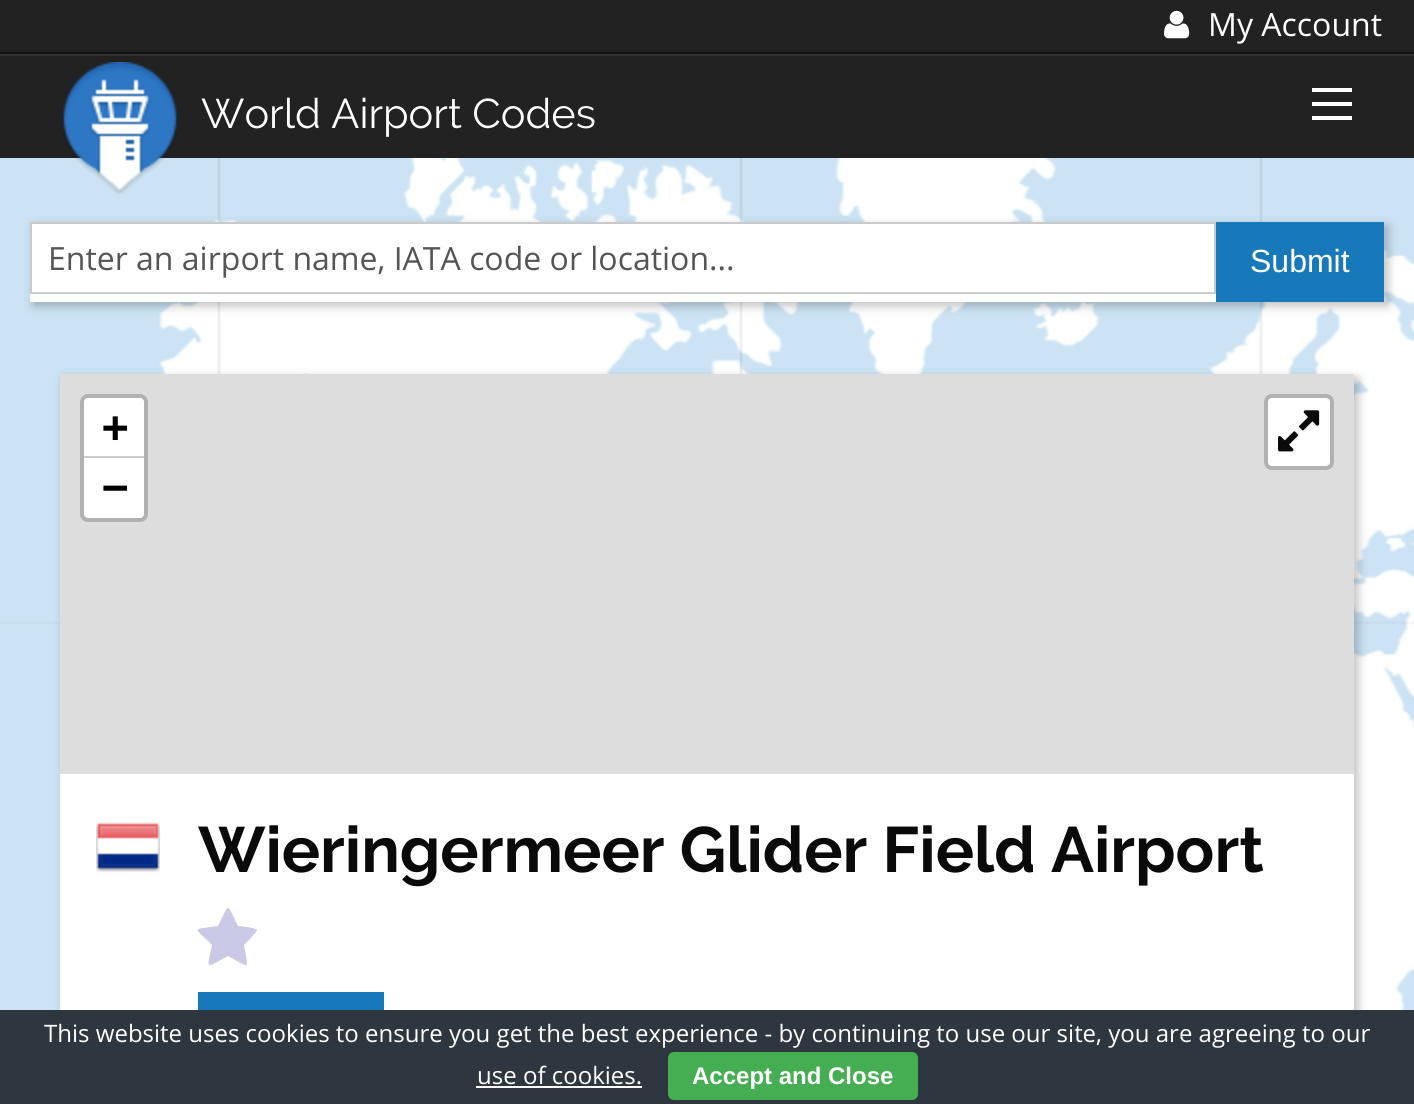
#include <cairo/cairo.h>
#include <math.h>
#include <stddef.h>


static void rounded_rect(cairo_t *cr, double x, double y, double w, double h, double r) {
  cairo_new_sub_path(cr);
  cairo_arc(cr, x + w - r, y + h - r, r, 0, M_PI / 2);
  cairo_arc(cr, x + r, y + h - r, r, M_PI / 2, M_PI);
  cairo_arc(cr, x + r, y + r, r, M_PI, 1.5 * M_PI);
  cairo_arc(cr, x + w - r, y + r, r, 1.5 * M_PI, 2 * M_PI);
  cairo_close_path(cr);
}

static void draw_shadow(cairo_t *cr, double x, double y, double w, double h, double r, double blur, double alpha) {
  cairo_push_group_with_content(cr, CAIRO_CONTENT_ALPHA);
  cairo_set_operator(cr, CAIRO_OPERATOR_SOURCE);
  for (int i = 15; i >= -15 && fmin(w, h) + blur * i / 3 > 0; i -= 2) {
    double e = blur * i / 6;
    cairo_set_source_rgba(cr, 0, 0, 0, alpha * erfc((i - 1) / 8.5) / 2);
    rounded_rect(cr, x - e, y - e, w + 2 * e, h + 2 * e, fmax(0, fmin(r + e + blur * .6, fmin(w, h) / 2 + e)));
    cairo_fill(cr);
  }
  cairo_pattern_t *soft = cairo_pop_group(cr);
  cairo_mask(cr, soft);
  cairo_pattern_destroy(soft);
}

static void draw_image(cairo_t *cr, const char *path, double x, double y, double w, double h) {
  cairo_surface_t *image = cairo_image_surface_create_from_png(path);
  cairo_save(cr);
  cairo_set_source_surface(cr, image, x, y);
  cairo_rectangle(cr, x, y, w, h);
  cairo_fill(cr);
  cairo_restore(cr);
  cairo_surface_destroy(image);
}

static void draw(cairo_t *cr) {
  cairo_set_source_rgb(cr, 1, 1, 1);
  cairo_paint(cr);
  draw_image(cr, "images/1.png", 0, 158, 1414, 852);
  cairo_set_source_rgb(cr, 34 / 255.0, 34 / 255.0, 34 / 255.0);
  cairo_rectangle(cr, 0, 0, 1414, 52);
  cairo_fill(cr);
  cairo_set_source_rgb(cr, 17 / 255.0, 17 / 255.0, 17 / 255.0);
  cairo_rectangle(cr, 0, 52, 1414, 2);
  cairo_fill(cr);
  draw_image(cr, "images/2.png", 1164, 10, 26, 29);
  cairo_set_source_rgb(cr, 34 / 255.0, 34 / 255.0, 34 / 255.0);
  cairo_rectangle(cr, 0, 56, 1414, 102);
  cairo_fill(cr);
  cairo_set_source_rgb(cr, 51 / 255.0, 51 / 255.0, 51 / 255.0);
  cairo_rectangle(cr, 0, 54, 1414, 2);
  cairo_fill(cr);
  draw_image(cr, "images/3.png", 63, 62, 114, 132);
  cairo_set_source_rgb(cr, 254 / 255.0, 254 / 255.0, 254 / 255.0);
  cairo_rectangle(cr, 1312, 116, 40, 4);
  cairo_fill(cr);
  cairo_rectangle(cr, 1312, 102, 40, 4);
  cairo_fill(cr);
  cairo_rectangle(cr, 1312, 88, 40, 4);
  cairo_fill(cr);
  cairo_set_source_rgb(cr, 0, 0, 0);
  draw_shadow(cr, 34, 226, 1354, 80, 0, 5, 0.25);
  cairo_set_source_rgb(cr, 1, 1, 1);
  cairo_rectangle(cr, 30, 224, 1186, 78);
  cairo_fill(cr);
  cairo_rectangle(cr, 31, 223, 1184, 70);
  cairo_set_source_rgb(cr, 202 / 255.0, 202 / 255.0, 202 / 255.0);
  cairo_stroke(cr);
  cairo_set_source_rgb(cr, 23 / 255.0, 121 / 255.0, 186 / 255.0);
  cairo_rectangle(cr, 1216, 222, 168, 80);
  cairo_fill(cr);
  cairo_set_source_rgb(cr, 0, 0, 0);
  draw_shadow(cr, 64, 378, 1294, 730, 0, 5, 0.25);
  cairo_set_source_rgb(cr, 1, 1, 1);
  cairo_rectangle(cr, 60, 774, 1294, 236);
  cairo_fill(cr);
  cairo_set_source_rgb(cr, 221 / 255.0, 221 / 255.0, 221 / 255.0);
  cairo_rectangle(cr, 60, 374, 1294, 400);
  cairo_fill(cr);
  rounded_rect(cr, 82, 396, 64, 124, 6);
  cairo_set_source_rgb(cr, 177 / 255.0, 177 / 255.0, 177 / 255.0);
  cairo_set_line_width(cr, 4);
  cairo_stroke(cr);
  cairo_set_source_rgb(cr, 1, 1, 1);
  cairo_new_path(cr);
  cairo_move_to(cr, 88, 398);
  cairo_line_to(cr, 140, 398);
  cairo_curve_to(cr, 142, 398, 144, 400, 144, 402);
  cairo_line_to(cr, 144, 458);
  cairo_line_to(cr, 84, 458);
  cairo_line_to(cr, 84, 402);
  cairo_curve_to(cr, 84, 400, 86, 398, 88, 398);
  cairo_close_path(cr);
  cairo_fill(cr);
  cairo_set_source_rgb(cr, 204 / 255.0, 204 / 255.0, 204 / 255.0);
  cairo_rectangle(cr, 84, 456, 60, 2);
  cairo_fill(cr);
  cairo_set_source_rgb(cr, 1, 1, 1);
  cairo_new_path(cr);
  cairo_move_to(cr, 84, 458);
  cairo_line_to(cr, 144, 458);
  cairo_line_to(cr, 144, 514);
  cairo_curve_to(cr, 144, 516, 142, 518, 140, 518);
  cairo_line_to(cr, 88, 518);
  cairo_curve_to(cr, 86, 518, 84, 516, 84, 514);
  cairo_close_path(cr);
  cairo_fill(cr);
  rounded_rect(cr, 1268, 398, 62, 68, 4);
  cairo_fill(cr);
  rounded_rect(cr, 1266, 396, 66, 72, 6);
  cairo_set_source_rgba(cr, 0, 0, 0, 0.2);
  cairo_stroke(cr);
  draw_image(cr, "images/4.png", 1278, 410, 42, 42);
  draw_image(cr, "images/5.png", 96, 822, 64, 51);
  cairo_set_source_rgb(cr, 202 / 255.0, 202 / 255.0, 231 / 255.0);
  cairo_new_path(cr);
  cairo_move_to(cr, 257, 930);
  cairo_curve_to(cr, 257, 932, 246, 943, 244, 945);
  cairo_curve_to(cr, 248, 970, 252, 969, 228, 956);
  cairo_curve_to(cr, 204, 969, 207, 970, 212, 945);
  cairo_curve_to(cr, 193, 926, 191, 930, 218, 926);
  cairo_curve_to(cr, 230, 902, 226, 902, 238, 926);
  cairo_curve_to(cr, 241, 926, 257, 928, 257, 930);
  cairo_close_path(cr);
  cairo_fill(cr);
  cairo_set_source_rgb(cr, 23 / 255.0, 121 / 255.0, 186 / 255.0);
  cairo_rectangle(cr, 198, 992, 186, 18);
  cairo_fill(cr);
  cairo_set_source_rgb(cr, 46 / 255.0, 54 / 255.0, 63 / 255.0);
  cairo_rectangle(cr, 0, 1010, 1414, 94);
  cairo_fill(cr);
  cairo_set_source_rgb(cr, 1, 1, 1);
  cairo_rectangle(cr, 476, 1086, 166, 2);
  cairo_fill(cr);
  cairo_set_source_rgb(cr, 69 / 255.0, 174 / 255.0, 82 / 255.0);
  rounded_rect(cr, 668, 1052, 250, 48, 6);
  cairo_fill(cr);
  cairo_select_font_face(cr, "Open Sans", CAIRO_FONT_SLANT_NORMAL, CAIRO_FONT_WEIGHT_NORMAL);
  cairo_set_font_size(cr, 32);
  cairo_set_source_rgb(cr, 254 / 255.0, 254 / 255.0, 254 / 255.0);
  cairo_move_to(cr, 1208, 36);
  cairo_show_text(cr, "My Account");
  cairo_select_font_face(cr, "Raleway", CAIRO_FONT_SLANT_NORMAL, CAIRO_FONT_WEIGHT_NORMAL);
  cairo_set_font_size(cr, 41.5);
  cairo_move_to(cr, 201, 128);
  cairo_show_text(cr, "World Airport Codes");
  cairo_select_font_face(cr, "Open Sans", CAIRO_FONT_SLANT_NORMAL, CAIRO_FONT_WEIGHT_NORMAL);
  cairo_set_font_size(cr, 32);
  cairo_set_source_rgb(cr, 85 / 255.0, 85 / 255.0, 85 / 255.0);
  cairo_move_to(cr, 48, 270);
  cairo_show_text(cr, "Enter an airport name, IATA code or location...");
  cairo_select_font_face(cr, "Liberation Sans", CAIRO_FONT_SLANT_NORMAL, CAIRO_FONT_WEIGHT_NORMAL);
  cairo_set_source_rgb(cr, 254 / 255.0, 254 / 255.0, 254 / 255.0);
  cairo_move_to(cr, 1250, 272);
  cairo_show_text(cr, "Submit");
  cairo_select_font_face(cr, "DejaVu Sans Mono", CAIRO_FONT_SLANT_NORMAL, CAIRO_FONT_WEIGHT_BOLD);
  cairo_set_font_size(cr, 44);
  cairo_set_source_rgb(cr, 0, 0, 0);
  cairo_move_to(cr, 102, 442);
  cairo_show_text(cr, "+");
  cairo_move_to(cr, 102, 502);
  cairo_show_text(cr, "−");
  cairo_select_font_face(cr, "Raleway", CAIRO_FONT_SLANT_NORMAL, CAIRO_FONT_WEIGHT_BOLD);
  cairo_set_font_size(cr, 64);
  cairo_set_source_rgb(cr, 10 / 255.0, 10 / 255.0, 10 / 255.0);
  cairo_move_to(cr, 198, 872);
  cairo_show_text(cr, "Wieringermeer Glider Field Airport");
  cairo_select_font_face(cr, "Open Sans", CAIRO_FONT_SLANT_NORMAL, CAIRO_FONT_WEIGHT_NORMAL);
  cairo_set_font_size(cr, 24);
  cairo_set_source_rgb(cr, 254 / 255.0, 254 / 255.0, 254 / 255.0);
  cairo_move_to(cr, 44, 1042);
  cairo_show_text(cr, "This website uses cookies to ensure you get the best experience - by continuing to use our site, you are agreeing to our");
  cairo_move_to(cr, 477, 1084);
  cairo_show_text(cr, "use of cookies.");
  cairo_select_font_face(cr, "Liberation Sans", CAIRO_FONT_SLANT_NORMAL, CAIRO_FONT_WEIGHT_BOLD);
  cairo_move_to(cr, 692, 1084);
  cairo_show_text(cr, "Accept and Close");
}

int main(void) {
  cairo_surface_t *surface = cairo_image_surface_create(CAIRO_FORMAT_RGB24, 1414, 1104);
  cairo_t *cr = cairo_create(surface);
  cairo_font_options_t *options = cairo_font_options_create();
  cairo_font_options_set_hint_metrics(options, CAIRO_HINT_METRICS_OFF);
  cairo_font_options_set_hint_style(options, CAIRO_HINT_STYLE_NONE);
  cairo_set_font_options(cr, options);
  cairo_set_miter_limit(cr, 4);
  draw(cr);
  cairo_surface_write_to_png(surface, "out.png");
  cairo_font_options_destroy(options);
  cairo_destroy(cr);
  cairo_surface_destroy(surface);
  return 0;
}
